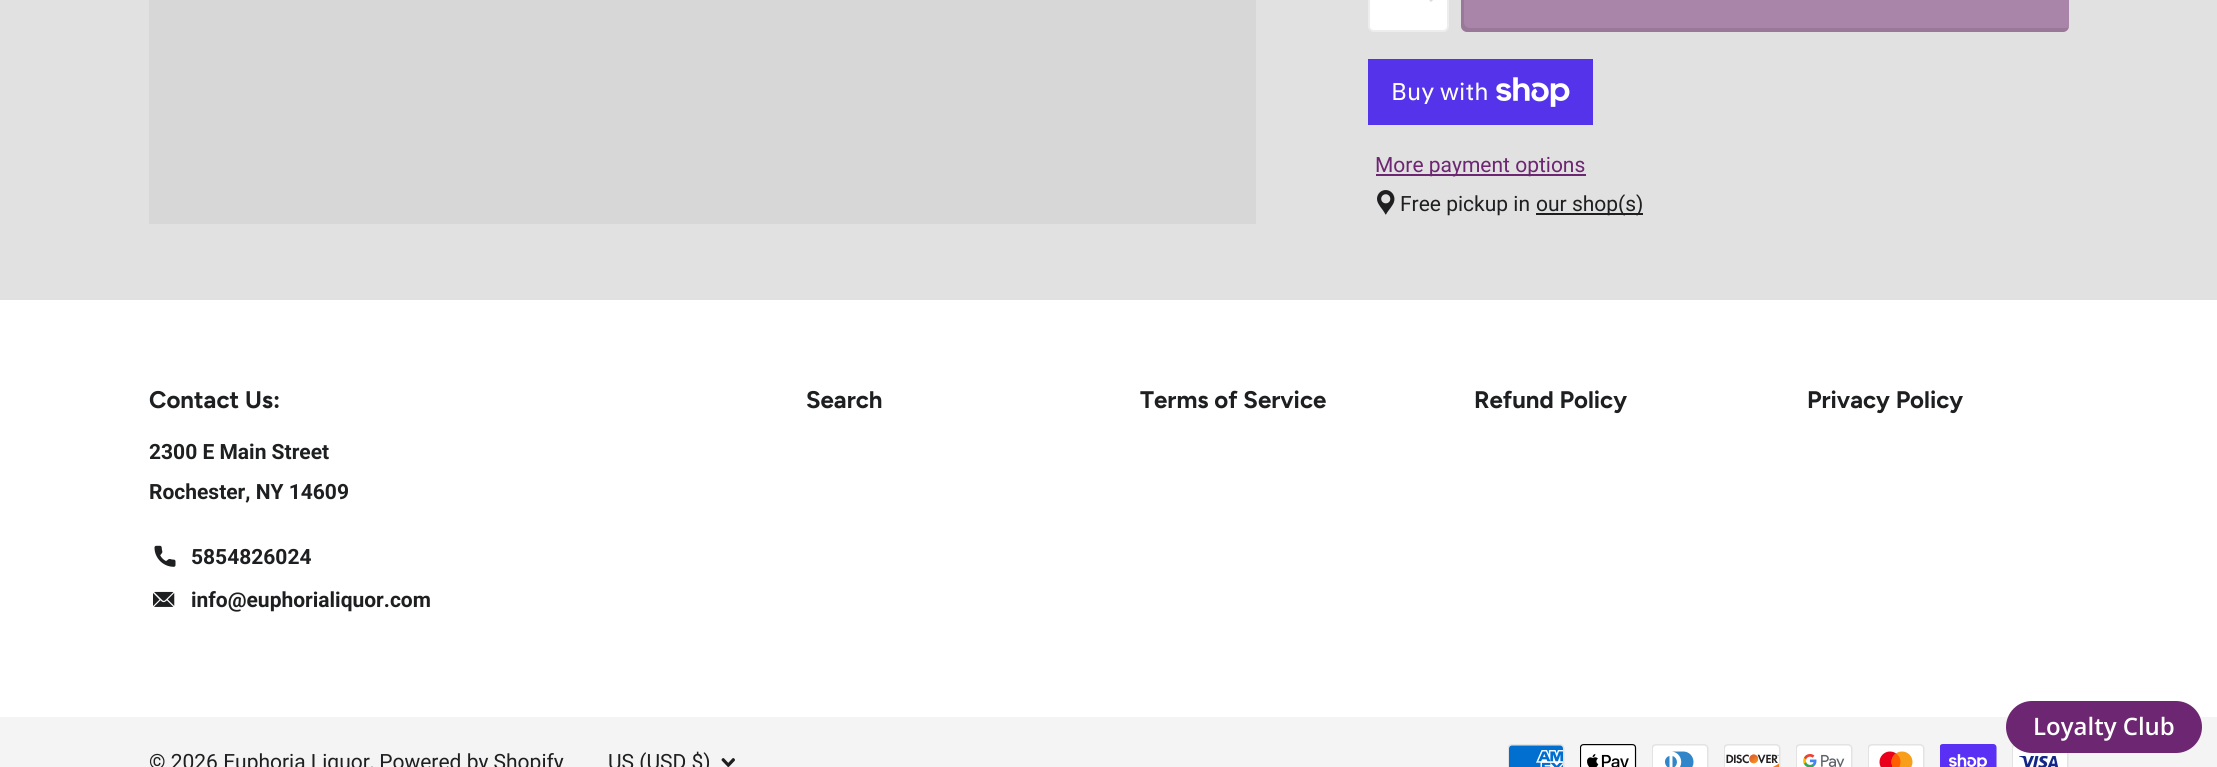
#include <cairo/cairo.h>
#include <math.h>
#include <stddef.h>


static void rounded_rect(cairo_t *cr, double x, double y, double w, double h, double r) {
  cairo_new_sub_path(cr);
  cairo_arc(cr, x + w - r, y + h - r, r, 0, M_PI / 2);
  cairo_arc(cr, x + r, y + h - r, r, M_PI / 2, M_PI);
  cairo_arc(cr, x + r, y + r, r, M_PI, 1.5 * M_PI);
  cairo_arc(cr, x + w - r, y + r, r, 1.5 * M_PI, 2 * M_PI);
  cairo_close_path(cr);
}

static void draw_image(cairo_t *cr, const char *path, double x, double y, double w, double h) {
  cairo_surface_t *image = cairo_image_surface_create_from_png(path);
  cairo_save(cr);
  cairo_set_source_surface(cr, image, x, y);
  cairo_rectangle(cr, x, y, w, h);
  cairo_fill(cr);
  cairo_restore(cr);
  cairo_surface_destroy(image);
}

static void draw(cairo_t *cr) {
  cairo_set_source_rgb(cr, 225 / 255.0, 225 / 255.0, 225 / 255.0);
  cairo_paint(cr);
  cairo_set_source_rgb(cr, 215 / 255.0, 215 / 255.0, 215 / 255.0);
  cairo_rectangle(cr, 149, 0, 1107, 224);
  cairo_fill(cr);
  cairo_set_source_rgb(cr, 1, 1, 1);
  rounded_rect(cr, 1368, -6, 81, 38, 6);
  cairo_fill(cr);
  rounded_rect(cr, 1369, -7, 79, 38, 5);
  cairo_set_source_rgba(cr, 30 / 255.0, 31 / 255.0, 32 / 255.0, 0.08);
  cairo_stroke(cr);
  draw_image(cr, "images/1.png", 1429, 0, 4, 2);
  cairo_set_source_rgb(cr, 170 / 255.0, 133 / 255.0, 170 / 255.0);
  rounded_rect(cr, 1461, -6, 608, 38, 6);
  cairo_fill(cr);
  cairo_set_source_rgba(cr, 0, 0, 0, 0.1);
  cairo_new_path(cr);
  cairo_move_to(cr, 1465, -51);
  cairo_curve_to(cr, 1463, -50, 1461, -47, 1461, -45);
  cairo_line_to(cr, 1461, 26);
  cairo_curve_to(cr, 1461, 29, 1464, 32, 1467, 32);
  cairo_line_to(cr, 2063, 32);
  cairo_curve_to(cr, 2066, 32, 2068, 30, 2069, 27);
  cairo_line_to(cr, 2066, 28);
  cairo_line_to(cr, 1470, 28);
  cairo_curve_to(cr, 1467, 28, 1464, 26, 1464, 22);
  cairo_line_to(cr, 1464, -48);
  cairo_close_path(cr);
  cairo_fill(cr);
  cairo_set_source_rgb(cr, 84 / 255.0, 51 / 255.0, 235 / 255.0);
  cairo_rectangle(cr, 1368, 59, 225, 66);
  cairo_fill(cr);
  draw_image(cr, "images/2.png", 1496, 77, 74, 30);
  cairo_set_source_rgb(cr, 109 / 255.0, 38 / 255.0, 113 / 255.0);
  cairo_rectangle(cr, 1376, 174, 210, 2);
  cairo_fill(cr);
  draw_image(cr, "images/3.png", 1377, 190, 18, 25);
  cairo_set_source_rgb(cr, 30 / 255.0, 31 / 255.0, 32 / 255.0);
  cairo_rectangle(cr, 1536, 213, 107, 2);
  cairo_fill(cr);
  cairo_set_source_rgb(cr, 1, 1, 1);
  cairo_rectangle(cr, 0, 300, 2217, 417);
  cairo_fill(cr);
  draw_image(cr, "images/4.png", 154, 545, 22, 22);
  draw_image(cr, "images/5.png", 153, 591, 22, 16);
  cairo_set_source_rgb(cr, 244 / 255.0, 244 / 255.0, 244 / 255.0);
  cairo_rectangle(cr, 0, 717, 2217, 50);
  cairo_fill(cr);
  draw_image(cr, "images/6.png", 721, 758, 14, 9);
  draw_image(cr, "images/7.png", 1508, 744, 57, 23);
  draw_image(cr, "images/8.png", 1580, 744, 57, 23);
  draw_image(cr, "images/9.png", 1652, 744, 57, 23);
  draw_image(cr, "images/10.png", 1724, 744, 57, 23);
  draw_image(cr, "images/11.png", 1796, 744, 57, 23);
  draw_image(cr, "images/12.png", 1868, 744, 57, 23);
  draw_image(cr, "images/13.png", 1940, 744, 57, 23);
  draw_image(cr, "images/14.png", 2012, 745, 57, 22);
  cairo_set_source_rgb(cr, 109 / 255.0, 38 / 255.0, 113 / 255.0);
  rounded_rect(cr, 2006, 701, 196, 52, 26);
  cairo_fill(cr);
  cairo_select_font_face(cr, "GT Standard", CAIRO_FONT_SLANT_NORMAL, CAIRO_FONT_WEIGHT_NORMAL);
  cairo_set_font_size(cr, 24);
  cairo_set_source_rgb(cr, 1, 1, 1);
  cairo_move_to(cr, 1391, 100);
  cairo_show_text(cr, "Buy with");
  cairo_select_font_face(cr, "Roboto", CAIRO_FONT_SLANT_NORMAL, CAIRO_FONT_WEIGHT_NORMAL);
  cairo_set_font_size(cr, 21);
  cairo_set_source_rgb(cr, 109 / 255.0, 38 / 255.0, 113 / 255.0);
  cairo_move_to(cr, 1375, 172);
  cairo_show_text(cr, "More payment options");
  cairo_set_source_rgb(cr, 30 / 255.0, 31 / 255.0, 32 / 255.0);
  cairo_move_to(cr, 1400, 211);
  cairo_show_text(cr, "Free pickup in");
  cairo_move_to(cr, 1536, 211);
  cairo_show_text(cr, "our shop(s)");
  cairo_select_font_face(cr, "Figtree", CAIRO_FONT_SLANT_NORMAL, CAIRO_FONT_WEIGHT_BOLD);
  cairo_set_font_size(cr, 24);
  cairo_move_to(cr, 149, 408);
  cairo_show_text(cr, "Contact Us:");
  cairo_select_font_face(cr, "Roboto", CAIRO_FONT_SLANT_NORMAL, CAIRO_FONT_WEIGHT_BOLD);
  cairo_set_font_size(cr, 21);
  cairo_move_to(cr, 149, 459);
  cairo_show_text(cr, "2300 E Main Street");
  cairo_move_to(cr, 149, 499);
  cairo_show_text(cr, "Rochester, NY 14609");
  cairo_move_to(cr, 191, 564);
  cairo_show_text(cr, "5854826024");
  cairo_move_to(cr, 191, 607);
  cairo_show_text(cr, "info@euphorialiquor.com");
  cairo_select_font_face(cr, "Figtree", CAIRO_FONT_SLANT_NORMAL, CAIRO_FONT_WEIGHT_BOLD);
  cairo_set_font_size(cr, 24);
  cairo_move_to(cr, 806, 408);
  cairo_show_text(cr, "Search");
  cairo_move_to(cr, 1140, 408);
  cairo_show_text(cr, "Terms of Service");
  cairo_move_to(cr, 1474, 408);
  cairo_show_text(cr, "Refund Policy");
  cairo_move_to(cr, 1807, 408);
  cairo_show_text(cr, "Privacy Policy");
  cairo_select_font_face(cr, "Roboto", CAIRO_FONT_SLANT_NORMAL, CAIRO_FONT_WEIGHT_NORMAL);
  cairo_set_font_size(cr, 21);
  cairo_move_to(cr, 149, 769);
  cairo_show_text(cr, "© 2026 Euphoria Liquor, Powered by Shopify");
  cairo_move_to(cr, 608, 769);
  cairo_show_text(cr, "US (USD $)");
  cairo_select_font_face(cr, "Open Sans SemiBold", CAIRO_FONT_SLANT_NORMAL, CAIRO_FONT_WEIGHT_NORMAL);
  cairo_set_font_size(cr, 24);
  cairo_set_source_rgb(cr, 1, 1, 1);
  cairo_move_to(cr, 2033, 735);
  cairo_show_text(cr, "Loyalty Club");
}

int main(void) {
  cairo_surface_t *surface = cairo_image_surface_create(CAIRO_FORMAT_RGB24, 2217, 767);
  cairo_t *cr = cairo_create(surface);
  cairo_font_options_t *options = cairo_font_options_create();
  cairo_font_options_set_hint_metrics(options, CAIRO_HINT_METRICS_OFF);
  cairo_font_options_set_hint_style(options, CAIRO_HINT_STYLE_NONE);
  cairo_set_font_options(cr, options);
  cairo_set_miter_limit(cr, 4);
  draw(cr);
  cairo_surface_write_to_png(surface, "out.png");
  cairo_font_options_destroy(options);
  cairo_destroy(cr);
  cairo_surface_destroy(surface);
  return 0;
}
